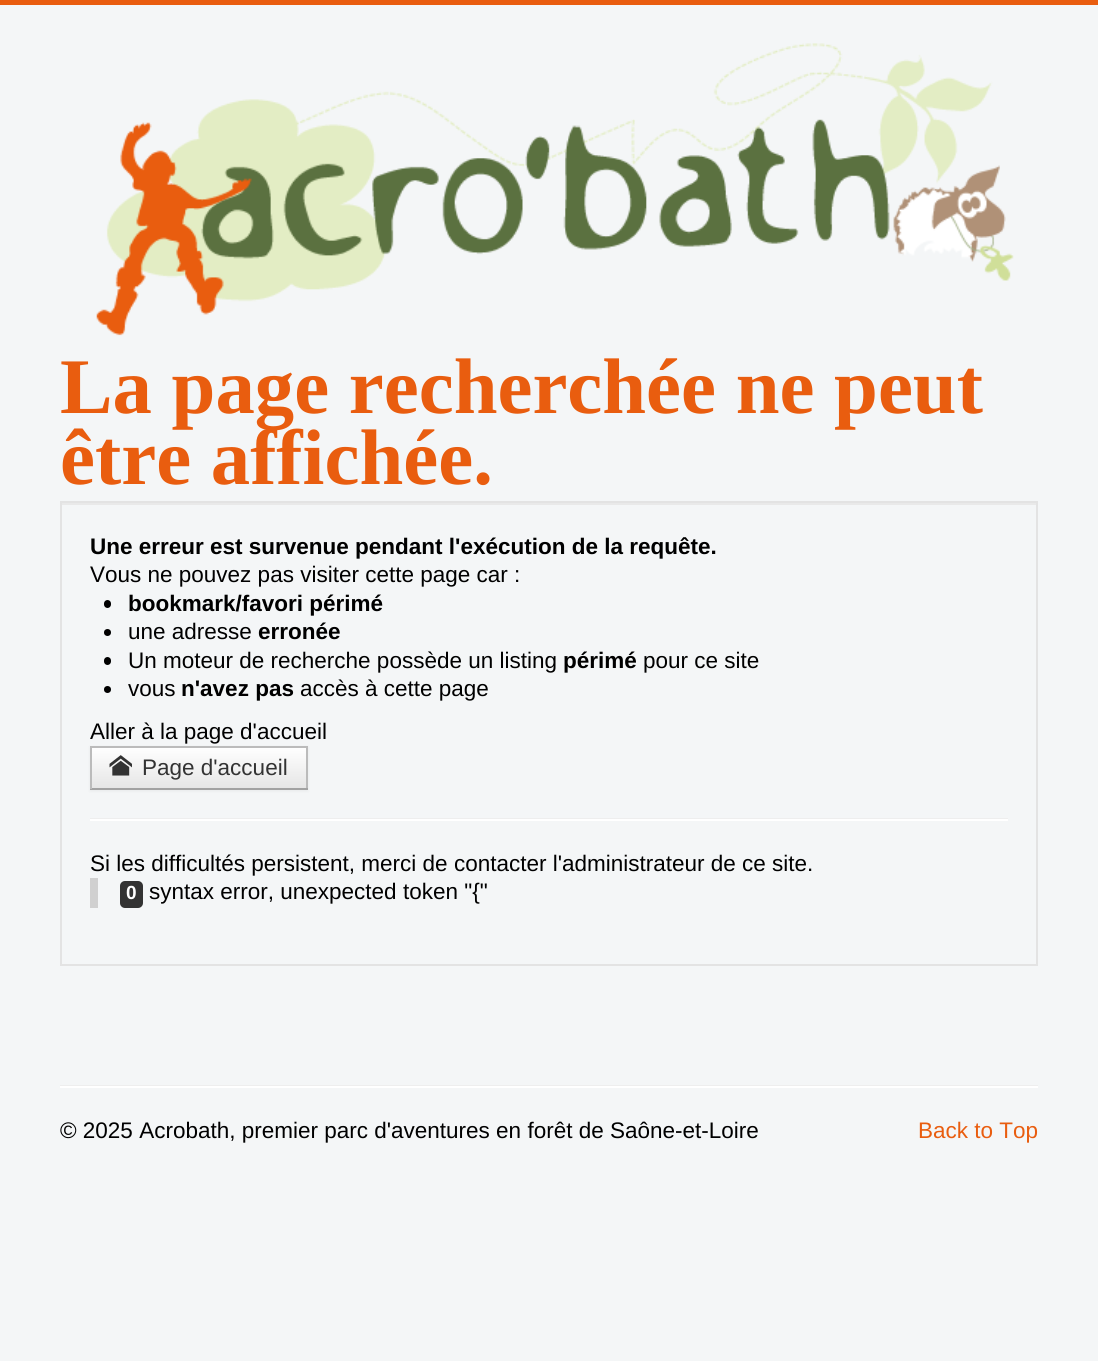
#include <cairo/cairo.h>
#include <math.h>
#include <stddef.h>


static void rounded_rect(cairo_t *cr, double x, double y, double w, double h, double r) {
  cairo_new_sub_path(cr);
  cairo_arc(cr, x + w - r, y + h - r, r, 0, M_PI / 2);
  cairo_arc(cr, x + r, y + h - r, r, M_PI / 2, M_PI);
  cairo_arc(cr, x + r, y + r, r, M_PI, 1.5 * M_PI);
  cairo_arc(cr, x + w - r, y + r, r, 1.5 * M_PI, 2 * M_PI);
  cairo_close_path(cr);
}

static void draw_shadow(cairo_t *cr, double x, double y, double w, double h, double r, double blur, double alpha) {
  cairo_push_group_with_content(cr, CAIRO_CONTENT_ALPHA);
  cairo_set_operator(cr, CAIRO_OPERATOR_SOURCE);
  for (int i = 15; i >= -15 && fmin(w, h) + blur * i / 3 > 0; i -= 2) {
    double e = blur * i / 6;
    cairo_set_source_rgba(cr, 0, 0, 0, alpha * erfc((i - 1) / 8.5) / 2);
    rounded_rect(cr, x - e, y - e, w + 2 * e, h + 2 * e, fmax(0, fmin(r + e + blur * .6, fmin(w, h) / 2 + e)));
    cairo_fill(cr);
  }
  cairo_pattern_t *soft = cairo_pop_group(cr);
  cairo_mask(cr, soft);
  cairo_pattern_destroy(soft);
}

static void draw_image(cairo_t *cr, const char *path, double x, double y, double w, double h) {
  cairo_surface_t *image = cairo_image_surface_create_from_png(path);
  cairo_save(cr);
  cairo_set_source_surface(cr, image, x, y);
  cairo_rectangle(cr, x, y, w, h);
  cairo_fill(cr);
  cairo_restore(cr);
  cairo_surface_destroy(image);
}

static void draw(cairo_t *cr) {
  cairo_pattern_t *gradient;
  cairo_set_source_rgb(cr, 244 / 255.0, 246 / 255.0, 247 / 255.0);
  cairo_paint(cr);
  cairo_set_source_rgb(cr, 233 / 255.0, 93 / 255.0, 15 / 255.0);
  cairo_rectangle(cr, 0, 0, 1098, 5);
  cairo_fill(cr);
  draw_image(cr, "images/1.png", 96, 43, 918, 293);
  cairo_set_source_rgb(cr, 233 / 255.0, 233 / 255.0, 233 / 255.0);
  cairo_rectangle(cr, 62, 503, 975, 2);
  cairo_fill(cr);
  cairo_rectangle(cr, 61, 502, 976, 463);
  cairo_set_source_rgb(cr, 227 / 255.0, 227 / 255.0, 227 / 255.0);
  cairo_stroke(cr);
  cairo_set_source_rgb(cr, 0, 0, 0);
  rounded_rect(cr, 104, 600, 7, 8, 3.5);
  cairo_fill(cr);
  cairo_arc(cr, 107.5, 632.5, 3.5, 0, 2 * M_PI);
  cairo_fill(cr);
  rounded_rect(cr, 104, 657, 7, 8, 3.5);
  cairo_fill(cr);
  cairo_arc(cr, 107.5, 689.5, 3.5, 0, 2 * M_PI);
  cairo_fill(cr);
  cairo_set_source_rgb(cr, 0, 0, 0);
  draw_shadow(cr, 90, 747, 218, 44, 0, 1.5, 0.05);
  gradient = cairo_pattern_create_linear(199, 747, 199, 788);
  cairo_pattern_add_color_stop_rgba(gradient, 0, 1, 1, 1, 1);
  cairo_pattern_add_color_stop_rgba(gradient, 1, 230 / 255.0, 230 / 255.0, 230 / 255.0, 1);
  cairo_set_source(cr, gradient);
  cairo_pattern_destroy(gradient);
  cairo_rectangle(cr, 92, 748, 214, 40);
  cairo_fill(cr);
  cairo_set_source_rgb(cr, 187 / 255.0, 187 / 255.0, 187 / 255.0);
  cairo_rectangle(cr, 90, 746, 218, 2);
  cairo_fill(cr);
  cairo_rectangle(cr, 306, 746, 2, 43);
  cairo_fill(cr);
  cairo_set_source_rgb(cr, 162 / 255.0, 162 / 255.0, 162 / 255.0);
  cairo_rectangle(cr, 90, 788, 218, 2);
  cairo_fill(cr);
  cairo_set_source_rgb(cr, 187 / 255.0, 187 / 255.0, 187 / 255.0);
  cairo_rectangle(cr, 90, 746, 2, 43);
  cairo_fill(cr);
  draw_image(cr, "images/2.png", 109, 755, 23, 21);
  cairo_set_source_rgb(cr, 238 / 255.0, 238 / 255.0, 238 / 255.0);
  cairo_rectangle(cr, 90, 818, 918, 1);
  cairo_fill(cr);
  cairo_set_source_rgb(cr, 1, 1, 1);
  cairo_rectangle(cr, 90, 819, 918, 2);
  cairo_fill(cr);
  cairo_set_source_rgb(cr, 208 / 255.0, 208 / 255.0, 208 / 255.0);
  cairo_rectangle(cr, 90, 878, 8, 30);
  cairo_fill(cr);
  cairo_set_source_rgb(cr, 51 / 255.0, 51 / 255.0, 51 / 255.0);
  rounded_rect(cr, 120, 881, 23, 27, 5);
  cairo_fill(cr);
  cairo_set_source_rgb(cr, 238 / 255.0, 238 / 255.0, 238 / 255.0);
  cairo_rectangle(cr, 60, 1085, 978, 1);
  cairo_fill(cr);
  cairo_set_source_rgb(cr, 1, 1, 1);
  cairo_rectangle(cr, 60, 1086, 978, 2);
  cairo_fill(cr);
  cairo_select_font_face(cr, "Liberation Serif", CAIRO_FONT_SLANT_NORMAL, CAIRO_FONT_WEIGHT_BOLD);
  cairo_set_font_size(cr, 78.75);
  cairo_set_source_rgb(cr, 233 / 255.0, 93 / 255.0, 15 / 255.0);
  cairo_move_to(cr, 60, 413);
  cairo_show_text(cr, "La page recherchée ne peut");
  cairo_move_to(cr, 60, 484);
  cairo_show_text(cr, "être affichée.");
  cairo_select_font_face(cr, "Liberation Sans", CAIRO_FONT_SLANT_NORMAL, CAIRO_FONT_WEIGHT_BOLD);
  cairo_set_font_size(cr, 22.5);
  cairo_set_source_rgb(cr, 0, 0, 0);
  cairo_move_to(cr, 90, 554);
  cairo_show_text(cr, "Une erreur est survenue pendant l'exécution de la requête.");
  cairo_select_font_face(cr, "Liberation Sans", CAIRO_FONT_SLANT_NORMAL, CAIRO_FONT_WEIGHT_NORMAL);
  cairo_move_to(cr, 90, 582);
  cairo_show_text(cr, "Vous ne pouvez pas visiter cette page car :");
  cairo_select_font_face(cr, "Liberation Sans", CAIRO_FONT_SLANT_NORMAL, CAIRO_FONT_WEIGHT_BOLD);
  cairo_move_to(cr, 128, 611);
  cairo_show_text(cr, "bookmark/favori périmé");
  cairo_select_font_face(cr, "Liberation Sans", CAIRO_FONT_SLANT_NORMAL, CAIRO_FONT_WEIGHT_NORMAL);
  cairo_move_to(cr, 128, 639);
  cairo_show_text(cr, "une adresse");
  cairo_select_font_face(cr, "Liberation Sans", CAIRO_FONT_SLANT_NORMAL, CAIRO_FONT_WEIGHT_BOLD);
  cairo_move_to(cr, 258, 639);
  cairo_show_text(cr, "erronée");
  cairo_select_font_face(cr, "Liberation Sans", CAIRO_FONT_SLANT_NORMAL, CAIRO_FONT_WEIGHT_NORMAL);
  cairo_move_to(cr, 128, 668);
  cairo_show_text(cr, "Un moteur de recherche possède un listing");
  cairo_select_font_face(cr, "Liberation Sans", CAIRO_FONT_SLANT_NORMAL, CAIRO_FONT_WEIGHT_BOLD);
  cairo_move_to(cr, 563, 668);
  cairo_show_text(cr, "périmé");
  cairo_select_font_face(cr, "Liberation Sans", CAIRO_FONT_SLANT_NORMAL, CAIRO_FONT_WEIGHT_NORMAL);
  cairo_move_to(cr, 643, 668);
  cairo_show_text(cr, "pour ce site");
  cairo_move_to(cr, 128, 696);
  cairo_show_text(cr, "vous");
  cairo_select_font_face(cr, "Liberation Sans", CAIRO_FONT_SLANT_NORMAL, CAIRO_FONT_WEIGHT_BOLD);
  cairo_move_to(cr, 181, 696);
  cairo_show_text(cr, "n'avez pas");
  cairo_select_font_face(cr, "Liberation Sans", CAIRO_FONT_SLANT_NORMAL, CAIRO_FONT_WEIGHT_NORMAL);
  cairo_move_to(cr, 300, 696);
  cairo_show_text(cr, "accès à cette page");
  cairo_move_to(cr, 90, 739);
  cairo_show_text(cr, "Aller à la page d'accueil");
  cairo_set_source_rgb(cr, 51 / 255.0, 51 / 255.0, 51 / 255.0);
  cairo_move_to(cr, 142, 775);
  cairo_show_text(cr, "Page d'accueil");
  cairo_set_source_rgb(cr, 0, 0, 0);
  cairo_move_to(cr, 90, 871);
  cairo_show_text(cr, "Si les difficultés persistent, merci de contacter l'administrateur de ce site.");
  cairo_select_font_face(cr, "Liberation Sans", CAIRO_FONT_SLANT_NORMAL, CAIRO_FONT_WEIGHT_BOLD);
  cairo_set_font_size(cr, 19);
  cairo_set_source_rgb(cr, 1, 1, 1);
  cairo_move_to(cr, 126, 899);
  cairo_show_text(cr, "0");
  cairo_select_font_face(cr, "Liberation Sans", CAIRO_FONT_SLANT_NORMAL, CAIRO_FONT_WEIGHT_NORMAL);
  cairo_set_font_size(cr, 22.5);
  cairo_set_source_rgb(cr, 0, 0, 0);
  cairo_move_to(cr, 149, 899);
  cairo_show_text(cr, "syntax error, unexpected token \"{\"");
  cairo_move_to(cr, 60, 1138);
  cairo_show_text(cr, "© 2025 Acrobath, premier parc d'aventures en forêt de Saône-et-Loire");
  cairo_set_source_rgb(cr, 233 / 255.0, 93 / 255.0, 15 / 255.0);
  cairo_move_to(cr, 918, 1138);
  cairo_show_text(cr, "Back to Top");
}

int main(void) {
  cairo_surface_t *surface = cairo_image_surface_create(CAIRO_FORMAT_RGB24, 1098, 1361);
  cairo_t *cr = cairo_create(surface);
  cairo_font_options_t *options = cairo_font_options_create();
  cairo_font_options_set_hint_metrics(options, CAIRO_HINT_METRICS_OFF);
  cairo_font_options_set_hint_style(options, CAIRO_HINT_STYLE_NONE);
  cairo_set_font_options(cr, options);
  cairo_set_miter_limit(cr, 4);
  draw(cr);
  cairo_surface_write_to_png(surface, "out.png");
  cairo_font_options_destroy(options);
  cairo_destroy(cr);
  cairo_surface_destroy(surface);
  return 0;
}
